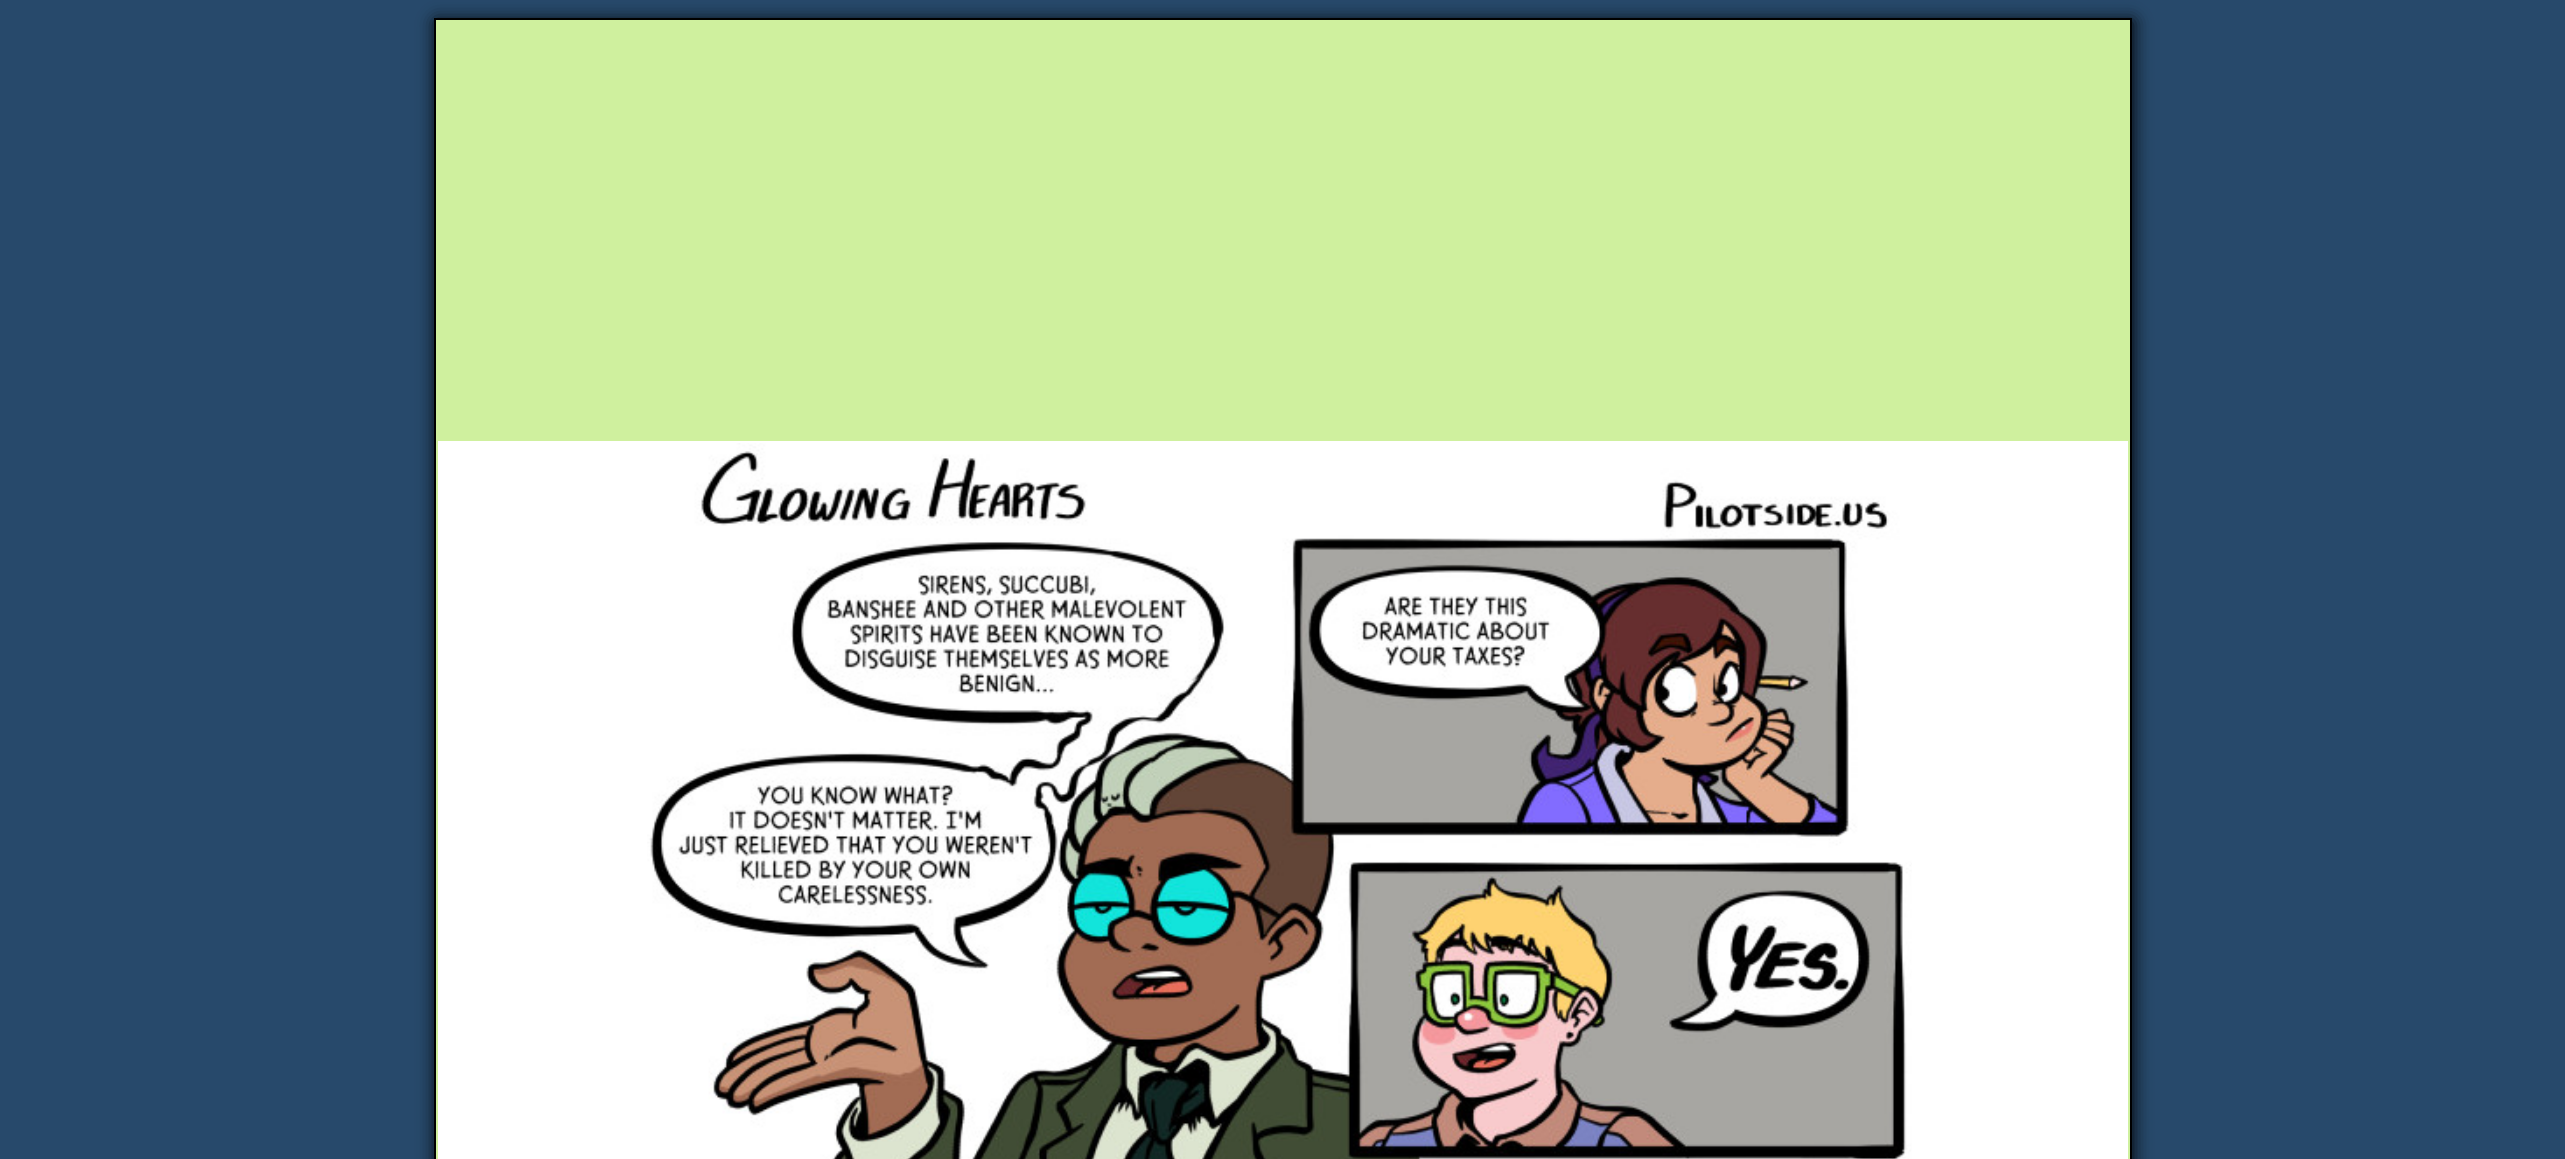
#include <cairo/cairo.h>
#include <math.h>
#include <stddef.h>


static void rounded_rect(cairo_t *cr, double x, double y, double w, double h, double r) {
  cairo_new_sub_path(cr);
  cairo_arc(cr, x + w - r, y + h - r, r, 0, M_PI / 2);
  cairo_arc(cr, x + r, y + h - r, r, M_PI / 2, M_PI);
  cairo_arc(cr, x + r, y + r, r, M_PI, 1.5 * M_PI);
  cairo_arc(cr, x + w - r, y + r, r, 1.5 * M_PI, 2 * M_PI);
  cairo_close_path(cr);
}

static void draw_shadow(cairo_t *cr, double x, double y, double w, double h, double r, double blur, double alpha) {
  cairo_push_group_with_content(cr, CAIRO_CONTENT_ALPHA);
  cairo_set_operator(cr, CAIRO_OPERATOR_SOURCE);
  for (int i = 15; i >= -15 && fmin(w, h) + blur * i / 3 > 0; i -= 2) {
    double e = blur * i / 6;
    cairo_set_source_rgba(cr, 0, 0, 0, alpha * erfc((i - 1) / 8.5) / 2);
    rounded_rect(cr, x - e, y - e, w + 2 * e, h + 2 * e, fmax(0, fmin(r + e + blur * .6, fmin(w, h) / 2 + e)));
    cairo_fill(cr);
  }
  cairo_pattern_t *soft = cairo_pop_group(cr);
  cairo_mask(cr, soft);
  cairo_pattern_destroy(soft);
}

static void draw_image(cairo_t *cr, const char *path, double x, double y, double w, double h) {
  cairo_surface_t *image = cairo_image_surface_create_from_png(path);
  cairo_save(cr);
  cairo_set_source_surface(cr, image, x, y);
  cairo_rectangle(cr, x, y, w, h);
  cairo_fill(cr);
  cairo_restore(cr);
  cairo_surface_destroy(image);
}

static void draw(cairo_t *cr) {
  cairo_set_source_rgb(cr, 39 / 255.0, 73 / 255.0, 107 / 255.0);
  cairo_paint(cr);
  cairo_set_source_rgb(cr, 0, 0, 0);
  draw_shadow(cr, 436, 21, 1697, 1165, 0, 9, 1);
  cairo_set_source_rgb(cr, 207 / 255.0, 240 / 255.0, 158 / 255.0);
  cairo_rectangle(cr, 435, 19, 1696, 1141);
  cairo_fill_preserve(cr);
  cairo_set_source_rgb(cr, 0, 0, 0);
  cairo_stroke(cr);
  cairo_set_source_rgb(cr, 1, 1, 1);
  cairo_rectangle(cr, 438, 441, 1690, 718);
  cairo_fill(cr);
  draw_image(cr, "images/1.png", 647, 443, 1265, 716);
}

int main(void) {
  cairo_surface_t *surface = cairo_image_surface_create(CAIRO_FORMAT_RGB24, 2565, 1159);
  cairo_t *cr = cairo_create(surface);
  cairo_font_options_t *options = cairo_font_options_create();
  cairo_font_options_set_hint_metrics(options, CAIRO_HINT_METRICS_OFF);
  cairo_font_options_set_hint_style(options, CAIRO_HINT_STYLE_NONE);
  cairo_set_font_options(cr, options);
  cairo_set_miter_limit(cr, 4);
  draw(cr);
  cairo_surface_write_to_png(surface, "out.png");
  cairo_font_options_destroy(options);
  cairo_destroy(cr);
  cairo_surface_destroy(surface);
  return 0;
}
